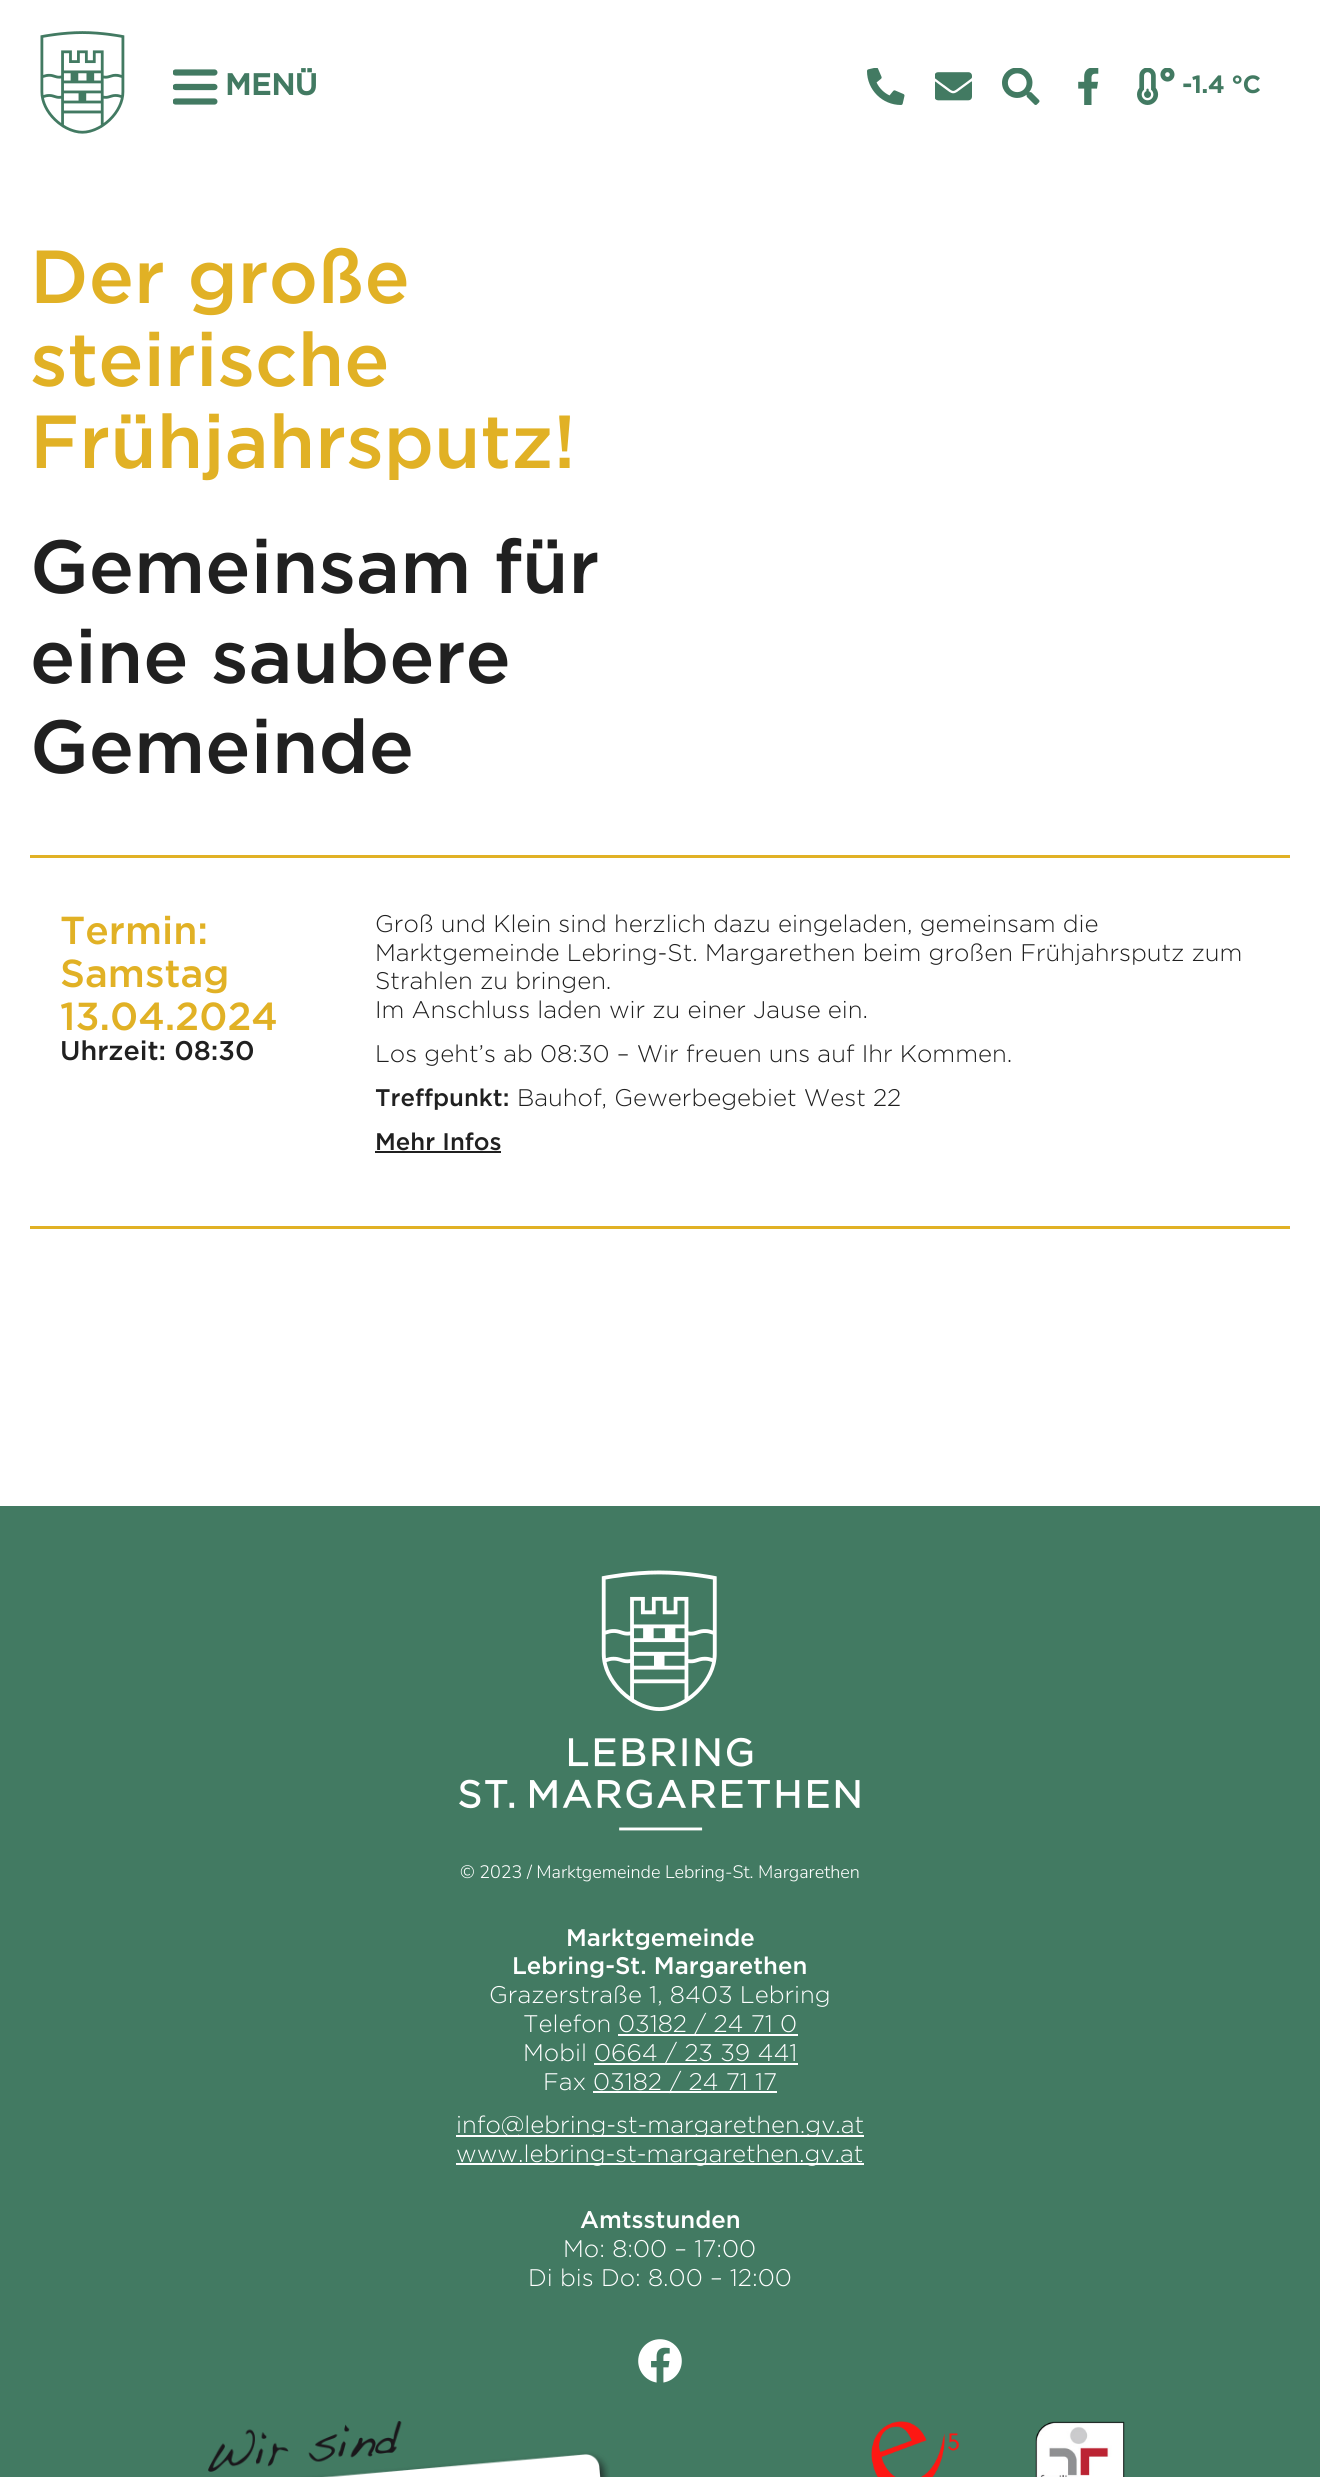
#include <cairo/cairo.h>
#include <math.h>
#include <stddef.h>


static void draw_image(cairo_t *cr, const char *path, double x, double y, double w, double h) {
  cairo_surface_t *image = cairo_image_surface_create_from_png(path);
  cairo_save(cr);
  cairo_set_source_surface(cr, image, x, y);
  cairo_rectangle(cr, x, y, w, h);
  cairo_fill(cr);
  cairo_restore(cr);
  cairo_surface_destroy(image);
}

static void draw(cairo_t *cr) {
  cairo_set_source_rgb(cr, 1, 1, 1);
  cairo_paint(cr);
  draw_image(cr, "images/1.png", 40, 31, 85, 103);
  draw_image(cr, "images/2.png", 173, 69, 45, 36);
  draw_image(cr, "images/3.png", 867, 68, 38, 37);
  draw_image(cr, "images/4.png", 935, 72, 37, 29);
  draw_image(cr, "images/5.png", 1002, 68, 38, 37);
  draw_image(cr, "images/6.png", 1078, 68, 21, 37);
  draw_image(cr, "images/7.png", 1137, 68, 38, 37);
  cairo_set_source_rgb(cr, 225 / 255.0, 177 / 255.0, 37 / 255.0);
  cairo_rectangle(cr, 30, 855, 1260, 3);
  cairo_fill(cr);
  cairo_set_source_rgb(cr, 32 / 255.0, 32 / 255.0, 32 / 255.0);
  cairo_rectangle(cr, 375, 1151, 126, 2);
  cairo_fill(cr);
  cairo_set_source_rgb(cr, 225 / 255.0, 177 / 255.0, 37 / 255.0);
  cairo_rectangle(cr, 30, 1226, 1260, 3);
  cairo_fill(cr);
  cairo_set_source_rgb(cr, 66 / 255.0, 122 / 255.0, 98 / 255.0);
  cairo_rectangle(cr, 0, 1506, 1320, 971);
  cairo_fill(cr);
  draw_image(cr, "images/8.png", 459, 1570, 401, 261);
  cairo_set_source_rgb(cr, 1, 1, 1);
  cairo_rectangle(cr, 618, 2034, 180, 2);
  cairo_fill(cr);
  cairo_rectangle(cr, 594, 2063, 204, 2);
  cairo_fill(cr);
  cairo_rectangle(cr, 593, 2091, 184, 2);
  cairo_fill(cr);
  cairo_rectangle(cr, 456, 2135, 408, 2);
  cairo_fill(cr);
  cairo_rectangle(cr, 456, 2163, 408, 2);
  cairo_fill(cr);
  draw_image(cr, "images/9.png", 638, 2339, 44, 44);
  draw_image(cr, "images/10.png", 208, 2421, 402, 56);
  draw_image(cr, "images/11.png", 871, 2421, 89, 56);
  draw_image(cr, "images/12.png", 1035, 2421, 90, 56);
  cairo_select_font_face(cr, "Gotham", CAIRO_FONT_SLANT_NORMAL, CAIRO_FONT_WEIGHT_BOLD);
  cairo_set_font_size(cr, 30);
  cairo_set_source_rgb(cr, 66 / 255.0, 122 / 255.0, 98 / 255.0);
  cairo_move_to(cr, 225, 95);
  cairo_show_text(cr, "MENÜ");
  cairo_set_font_size(cr, 24);
  cairo_move_to(cr, 1182, 93);
  cairo_show_text(cr, "-1.4 °C");
  cairo_select_font_face(cr, "Gotham Medium", CAIRO_FONT_SLANT_NORMAL, CAIRO_FONT_WEIGHT_NORMAL);
  cairo_set_font_size(cr, 75);
  cairo_set_source_rgb(cr, 225 / 255.0, 177 / 255.0, 37 / 255.0);
  cairo_move_to(cr, 30, 303);
  cairo_show_text(cr, "Der große");
  cairo_move_to(cr, 30, 386);
  cairo_show_text(cr, "steirische");
  cairo_move_to(cr, 30, 468);
  cairo_show_text(cr, "Frühjahrsputz!");
  cairo_set_source_rgb(cr, 32 / 255.0, 32 / 255.0, 32 / 255.0);
  cairo_move_to(cr, 30, 593);
  cairo_show_text(cr, "Gemeinsam für");
  cairo_move_to(cr, 30, 683);
  cairo_show_text(cr, "eine saubere");
  cairo_move_to(cr, 30, 773);
  cairo_show_text(cr, "Gemeinde");
  cairo_set_font_size(cr, 39);
  cairo_set_source_rgb(cr, 225 / 255.0, 177 / 255.0, 37 / 255.0);
  cairo_move_to(cr, 60, 944);
  cairo_show_text(cr, "Termin:");
  cairo_move_to(cr, 60, 987);
  cairo_show_text(cr, "Samstag");
  cairo_move_to(cr, 60, 1030);
  cairo_show_text(cr, "13.04.2024");
  cairo_set_font_size(cr, 27);
  cairo_set_source_rgb(cr, 32 / 255.0, 32 / 255.0, 32 / 255.0);
  cairo_move_to(cr, 60, 1060);
  cairo_show_text(cr, "Uhrzeit: 08:30");
  cairo_select_font_face(cr, "Gotham Light", CAIRO_FONT_SLANT_NORMAL, CAIRO_FONT_WEIGHT_NORMAL);
  cairo_set_font_size(cr, 24);
  cairo_move_to(cr, 375, 932);
  cairo_show_text(cr, "Groß und Klein sind herzlich dazu eingeladen, gemeinsam die");
  cairo_move_to(cr, 375, 961);
  cairo_show_text(cr, "Marktgemeinde Lebring-St. Margarethen beim großen Frühjahrsputz zum");
  cairo_move_to(cr, 375, 989);
  cairo_show_text(cr, "Strahlen zu bringen.");
  cairo_move_to(cr, 375, 1018);
  cairo_show_text(cr, "Im Anschluss laden wir zu einer Jause ein.");
  cairo_move_to(cr, 375, 1062);
  cairo_show_text(cr, "Los geht’s ab 08:30 – Wir freuen uns auf Ihr Kommen.");
  cairo_select_font_face(cr, "Gotham Medium", CAIRO_FONT_SLANT_NORMAL, CAIRO_FONT_WEIGHT_NORMAL);
  cairo_move_to(cr, 375, 1106);
  cairo_show_text(cr, "Treffpunkt:");
  cairo_select_font_face(cr, "Gotham Light", CAIRO_FONT_SLANT_NORMAL, CAIRO_FONT_WEIGHT_NORMAL);
  cairo_move_to(cr, 517, 1106);
  cairo_show_text(cr, "Bauhof, Gewerbegebiet West 22");
  cairo_select_font_face(cr, "Gotham Medium", CAIRO_FONT_SLANT_NORMAL, CAIRO_FONT_WEIGHT_NORMAL);
  cairo_move_to(cr, 375, 1150);
  cairo_show_text(cr, "Mehr Infos");
  cairo_select_font_face(cr, "Nunito Sans Light", CAIRO_FONT_SLANT_NORMAL, CAIRO_FONT_WEIGHT_NORMAL);
  cairo_set_font_size(cr, 18);
  cairo_set_source_rgb(cr, 1, 1, 1);
  cairo_move_to(cr, 460, 1878);
  cairo_show_text(cr, "© 2023 / Marktgemeinde Lebring-St. Margarethen");
  cairo_select_font_face(cr, "Gotham Medium", CAIRO_FONT_SLANT_NORMAL, CAIRO_FONT_WEIGHT_NORMAL);
  cairo_set_font_size(cr, 24);
  cairo_move_to(cr, 566, 1946);
  cairo_show_text(cr, "Marktgemeinde");
  cairo_move_to(cr, 512, 1974);
  cairo_show_text(cr, "Lebring-St. Margarethen");
  cairo_select_font_face(cr, "Gotham Light", CAIRO_FONT_SLANT_NORMAL, CAIRO_FONT_WEIGHT_NORMAL);
  cairo_move_to(cr, 489, 2003);
  cairo_show_text(cr, "Grazerstraße 1, 8403 Lebring");
  cairo_move_to(cr, 523, 2032);
  cairo_show_text(cr, "Telefon");
  cairo_move_to(cr, 618, 2032);
  cairo_show_text(cr, "03182 / 24 71 0");
  cairo_move_to(cr, 523, 2061);
  cairo_show_text(cr, "Mobil");
  cairo_move_to(cr, 594, 2061);
  cairo_show_text(cr, "0664 / 23 39 441");
  cairo_move_to(cr, 543, 2090);
  cairo_show_text(cr, "Fax");
  cairo_move_to(cr, 593, 2090);
  cairo_show_text(cr, "03182 / 24 71 17");
  cairo_move_to(cr, 456, 2133);
  cairo_show_text(cr, "info@lebring-st-margarethen.gv.at");
  cairo_move_to(cr, 456, 2162);
  cairo_show_text(cr, "www.lebring-st-margarethen.gv.at");
  cairo_select_font_face(cr, "Gotham Medium", CAIRO_FONT_SLANT_NORMAL, CAIRO_FONT_WEIGHT_NORMAL);
  cairo_move_to(cr, 580, 2228);
  cairo_show_text(cr, "Amtsstunden");
  cairo_select_font_face(cr, "Gotham Light", CAIRO_FONT_SLANT_NORMAL, CAIRO_FONT_WEIGHT_NORMAL);
  cairo_move_to(cr, 563, 2257);
  cairo_show_text(cr, "Mo: 8:00 – 17:00");
  cairo_move_to(cr, 528, 2286);
  cairo_show_text(cr, "Di bis Do: 8.00 – 12:00");
}

int main(void) {
  cairo_surface_t *surface = cairo_image_surface_create(CAIRO_FORMAT_RGB24, 1320, 2477);
  cairo_t *cr = cairo_create(surface);
  cairo_font_options_t *options = cairo_font_options_create();
  cairo_font_options_set_hint_metrics(options, CAIRO_HINT_METRICS_OFF);
  cairo_font_options_set_hint_style(options, CAIRO_HINT_STYLE_NONE);
  cairo_set_font_options(cr, options);
  cairo_set_miter_limit(cr, 4);
  draw(cr);
  cairo_surface_write_to_png(surface, "out.png");
  cairo_font_options_destroy(options);
  cairo_destroy(cr);
  cairo_surface_destroy(surface);
  return 0;
}
